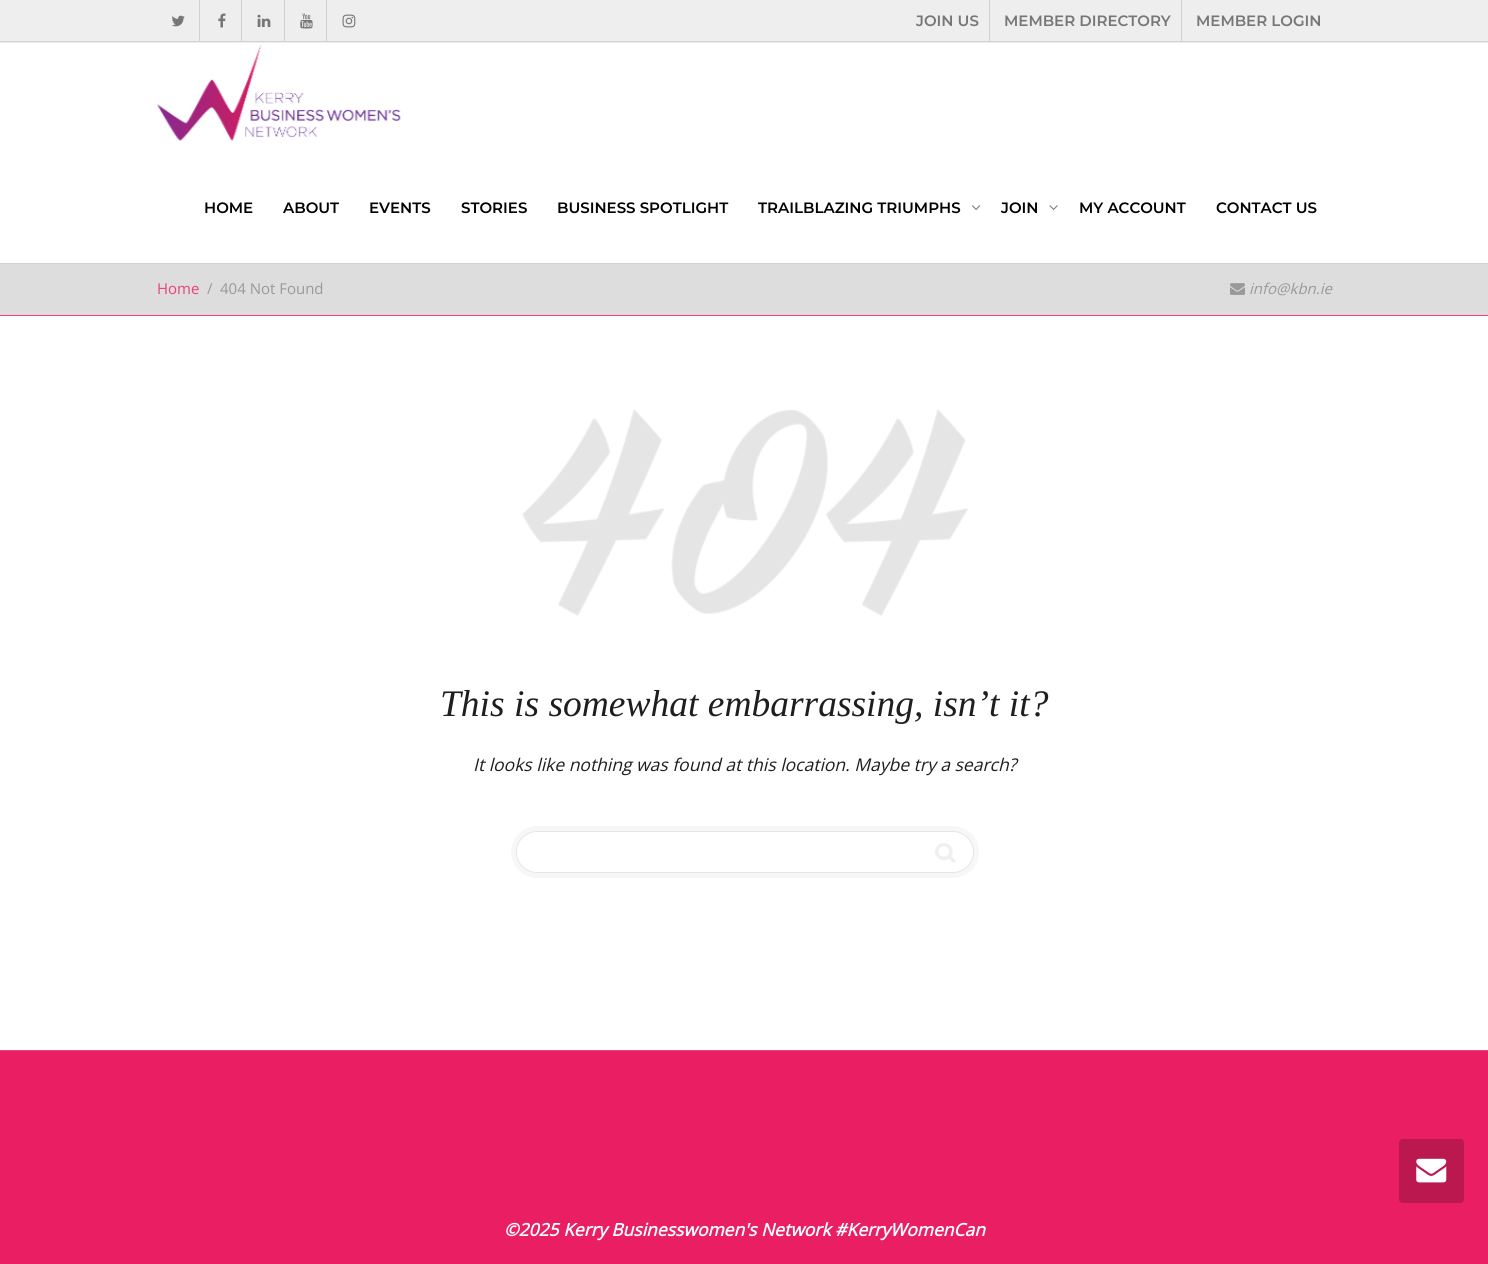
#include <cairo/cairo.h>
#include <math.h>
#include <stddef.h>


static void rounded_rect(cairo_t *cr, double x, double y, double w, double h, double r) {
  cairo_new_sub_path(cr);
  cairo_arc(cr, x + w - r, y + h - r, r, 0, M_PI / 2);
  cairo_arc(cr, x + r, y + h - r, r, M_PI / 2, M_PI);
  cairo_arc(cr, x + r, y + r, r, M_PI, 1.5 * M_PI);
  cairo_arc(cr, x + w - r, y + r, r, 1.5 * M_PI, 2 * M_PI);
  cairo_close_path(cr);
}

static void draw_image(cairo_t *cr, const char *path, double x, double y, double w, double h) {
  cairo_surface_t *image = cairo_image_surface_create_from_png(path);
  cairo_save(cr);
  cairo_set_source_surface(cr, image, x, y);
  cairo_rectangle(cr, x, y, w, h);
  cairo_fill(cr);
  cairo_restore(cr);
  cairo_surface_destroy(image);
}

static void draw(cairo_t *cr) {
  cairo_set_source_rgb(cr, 1, 1, 1);
  cairo_paint(cr);
  cairo_set_source_rgb(cr, 238 / 255.0, 238 / 255.0, 238 / 255.0);
  cairo_rectangle(cr, 0, 0, 1488, 43);
  cairo_fill(cr);
  cairo_set_source_rgb(cr, 209 / 255.0, 209 / 255.0, 209 / 255.0);
  cairo_rectangle(cr, 0, 41, 1488, 1);
  cairo_fill(cr);
  cairo_rectangle(cr, 199, 0, 1, 41);
  cairo_fill(cr);
  draw_image(cr, "images/1.png", 171, 15, 14, 12);
  cairo_rectangle(cr, 241, 0, 1, 41);
  cairo_fill(cr);
  draw_image(cr, "images/2.png", 218, 13, 8, 15);
  cairo_rectangle(cr, 284, 0, 1, 41);
  cairo_fill(cr);
  draw_image(cr, "images/3.png", 257, 14, 14, 13);
  cairo_rectangle(cr, 326, 0, 1, 41);
  cairo_fill(cr);
  draw_image(cr, "images/4.png", 300, 13, 13, 16);
  draw_image(cr, "images/5.png", 342, 14, 14, 14);
  cairo_rectangle(cr, 989, 0, 1, 41);
  cairo_fill(cr);
  cairo_rectangle(cr, 1181, 0, 1, 41);
  cairo_fill(cr);
  cairo_rectangle(cr, 0, 263, 1488, 1);
  cairo_fill(cr);
  draw_image(cr, "images/6.png", 157, 44, 244, 97);
  draw_image(cr, "images/7.png", 972, 205, 9, 5);
  draw_image(cr, "images/8.png", 1049, 205, 9, 5);
  cairo_set_source_rgb(cr, 221 / 255.0, 221 / 255.0, 221 / 255.0);
  cairo_rectangle(cr, 0, 264, 1488, 51);
  cairo_fill(cr);
  cairo_set_source_rgb(cr, 236 / 255.0, 64 / 255.0, 122 / 255.0);
  cairo_rectangle(cr, 0, 315, 1488, 1);
  cairo_fill(cr);
  draw_image(cr, "images/9.png", 1230, 283, 15, 12);
  draw_image(cr, "images/10.png", 522, 409, 446, 207);
  rounded_rect(cr, 513.5, 828.5, 463, 47, 23.5);
  cairo_set_source_rgb(cr, 247 / 255.0, 247 / 255.0, 247 / 255.0);
  cairo_set_line_width(cr, 5);
  cairo_stroke(cr);
  rounded_rect(cr, 516.5, 831.5, 457, 41, 20.5);
  cairo_set_source_rgb(cr, 229 / 255.0, 229 / 255.0, 229 / 255.0);
  cairo_set_line_width(cr, 1);
  cairo_stroke(cr);
  draw_image(cr, "images/11.png", 935, 842, 21, 21);
  cairo_set_source_rgb(cr, 233 / 255.0, 30 / 255.0, 99 / 255.0);
  cairo_rectangle(cr, 0, 1051, 1488, 213);
  cairo_fill(cr);
  cairo_set_source_rgb(cr, 236 / 255.0, 64 / 255.0, 122 / 255.0);
  cairo_rectangle(cr, 0, 1050, 1488, 1);
  cairo_fill(cr);
  cairo_set_source_rgb(cr, 186 / 255.0, 24 / 255.0, 79 / 255.0);
  rounded_rect(cr, 1399, 1139, 65, 64, 4);
  cairo_fill(cr);
  draw_image(cr, "images/12.png", 1416, 1158, 31, 25);
  cairo_select_font_face(cr, "Montserrat SemiBold", CAIRO_FONT_SLANT_NORMAL, CAIRO_FONT_WEIGHT_NORMAL);
  cairo_set_font_size(cr, 15);
  cairo_set_source_rgb(cr, 119 / 255.0, 119 / 255.0, 119 / 255.0);
  cairo_move_to(cr, 916, 26);
  cairo_show_text(cr, "JOIN US");
  cairo_move_to(cr, 1004, 26);
  cairo_show_text(cr, "MEMBER DIRECTORY");
  cairo_move_to(cr, 1196, 26);
  cairo_show_text(cr, "MEMBER LOGIN");
  cairo_set_source_rgb(cr, 0, 0, 0);
  cairo_move_to(cr, 204, 213);
  cairo_show_text(cr, "HOME");
  cairo_move_to(cr, 283, 213);
  cairo_show_text(cr, "ABOUT");
  cairo_move_to(cr, 369, 213);
  cairo_show_text(cr, "EVENTS");
  cairo_move_to(cr, 461, 213);
  cairo_show_text(cr, "STORIES");
  cairo_move_to(cr, 557, 213);
  cairo_show_text(cr, "BUSINESS SPOTLIGHT");
  cairo_move_to(cr, 758, 213);
  cairo_show_text(cr, "TRAILBLAZING TRIUMPHS");
  cairo_move_to(cr, 1001, 213);
  cairo_show_text(cr, "JOIN");
  cairo_move_to(cr, 1079, 213);
  cairo_show_text(cr, "MY ACCOUNT");
  cairo_move_to(cr, 1216, 213);
  cairo_show_text(cr, "CONTACT US");
  cairo_select_font_face(cr, "Open Sans", CAIRO_FONT_SLANT_NORMAL, CAIRO_FONT_WEIGHT_NORMAL);
  cairo_set_source_rgb(cr, 236 / 255.0, 64 / 255.0, 122 / 255.0);
  cairo_move_to(cr, 157, 294);
  cairo_show_text(cr, "Home");
  cairo_set_source_rgb(cr, 153 / 255.0, 153 / 255.0, 153 / 255.0);
  cairo_move_to(cr, 207, 294);
  cairo_show_text(cr, "/");
  cairo_move_to(cr, 220, 294);
  cairo_show_text(cr, "404 Not Found");
  cairo_select_font_face(cr, "Open Sans", CAIRO_FONT_SLANT_ITALIC, CAIRO_FONT_WEIGHT_NORMAL);
  cairo_move_to(cr, 1249, 294);
  cairo_show_text(cr, "info@kbn.ie");
  cairo_select_font_face(cr, "Liberation Serif", CAIRO_FONT_SLANT_ITALIC, CAIRO_FONT_WEIGHT_NORMAL);
  cairo_set_font_size(cr, 37.5);
  cairo_set_source_rgb(cr, 30 / 255.0, 30 / 255.0, 30 / 255.0);
  cairo_move_to(cr, 440, 716);
  cairo_show_text(cr, "This is somewhat embarrassing, isn’t it?");
  cairo_select_font_face(cr, "Open Sans", CAIRO_FONT_SLANT_ITALIC, CAIRO_FONT_WEIGHT_NORMAL);
  cairo_set_font_size(cr, 17.5);
  cairo_move_to(cr, 473, 771);
  cairo_show_text(cr, "It looks like nothing was found at this location. Maybe try a search?");
  cairo_select_font_face(cr, "Open Sans", CAIRO_FONT_SLANT_ITALIC, CAIRO_FONT_WEIGHT_BOLD);
  cairo_set_source_rgb(cr, 1, 1, 1);
  cairo_move_to(cr, 504, 1236);
  cairo_show_text(cr, "©2025 Kerry Businesswomen's Network #KerryWomenCan");
}

int main(void) {
  cairo_surface_t *surface = cairo_image_surface_create(CAIRO_FORMAT_RGB24, 1488, 1264);
  cairo_t *cr = cairo_create(surface);
  cairo_font_options_t *options = cairo_font_options_create();
  cairo_font_options_set_hint_metrics(options, CAIRO_HINT_METRICS_OFF);
  cairo_font_options_set_hint_style(options, CAIRO_HINT_STYLE_NONE);
  cairo_set_font_options(cr, options);
  cairo_set_miter_limit(cr, 4);
  draw(cr);
  cairo_surface_write_to_png(surface, "out.png");
  cairo_font_options_destroy(options);
  cairo_destroy(cr);
  cairo_surface_destroy(surface);
  return 0;
}
